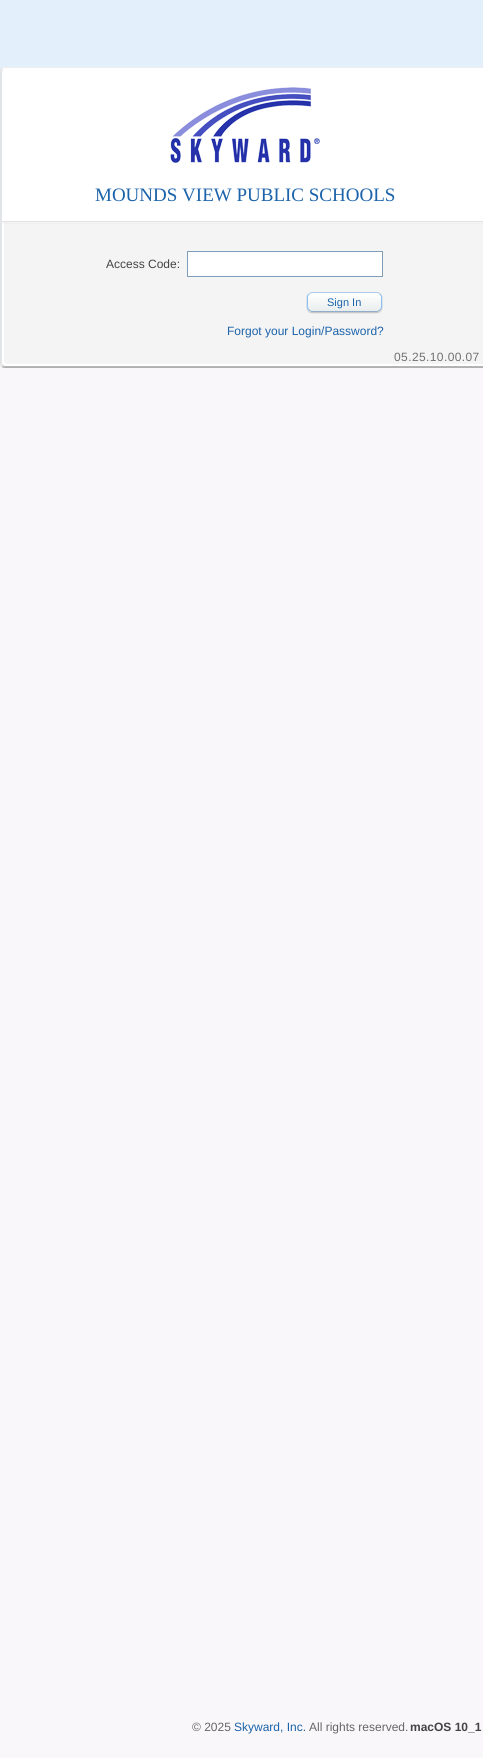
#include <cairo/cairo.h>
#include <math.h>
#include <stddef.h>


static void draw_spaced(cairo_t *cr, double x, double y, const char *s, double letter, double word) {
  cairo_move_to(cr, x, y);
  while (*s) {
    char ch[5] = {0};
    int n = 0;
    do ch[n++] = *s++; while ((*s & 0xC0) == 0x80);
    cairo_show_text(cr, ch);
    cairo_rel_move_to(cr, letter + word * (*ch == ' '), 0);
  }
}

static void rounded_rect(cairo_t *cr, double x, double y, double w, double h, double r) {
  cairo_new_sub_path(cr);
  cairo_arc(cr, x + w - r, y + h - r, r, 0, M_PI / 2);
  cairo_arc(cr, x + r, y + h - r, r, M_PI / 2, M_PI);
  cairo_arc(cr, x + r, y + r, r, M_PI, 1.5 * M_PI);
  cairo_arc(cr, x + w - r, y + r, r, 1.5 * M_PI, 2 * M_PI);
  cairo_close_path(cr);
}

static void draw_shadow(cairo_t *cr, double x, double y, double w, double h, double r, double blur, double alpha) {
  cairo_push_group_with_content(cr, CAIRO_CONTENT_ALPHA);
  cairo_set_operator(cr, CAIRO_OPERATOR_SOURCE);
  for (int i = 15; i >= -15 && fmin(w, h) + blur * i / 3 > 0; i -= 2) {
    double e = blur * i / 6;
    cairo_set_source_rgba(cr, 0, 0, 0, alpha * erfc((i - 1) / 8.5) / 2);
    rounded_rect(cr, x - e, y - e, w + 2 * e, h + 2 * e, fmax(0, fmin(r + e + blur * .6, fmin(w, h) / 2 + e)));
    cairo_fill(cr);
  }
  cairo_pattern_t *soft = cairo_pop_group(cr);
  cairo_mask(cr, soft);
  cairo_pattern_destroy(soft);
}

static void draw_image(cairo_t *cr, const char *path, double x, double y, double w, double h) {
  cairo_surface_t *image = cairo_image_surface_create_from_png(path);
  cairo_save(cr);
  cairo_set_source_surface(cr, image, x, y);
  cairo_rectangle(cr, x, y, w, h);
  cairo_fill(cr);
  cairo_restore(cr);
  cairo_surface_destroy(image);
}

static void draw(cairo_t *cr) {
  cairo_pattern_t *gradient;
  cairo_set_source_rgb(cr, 249 / 255.0, 247 / 255.0, 249 / 255.0);
  cairo_paint(cr);
  draw_image(cr, "images/1.png", 0, 0, 483, 224);
  cairo_new_path(cr);
  cairo_move_to(cr, 1.5, 68.5);
  cairo_line_to(cr, 4, 67.5);
  cairo_line_to(cr, 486, 67.5);
  cairo_line_to(cr, 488.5, 68.5);
  cairo_set_source_rgb(cr, 238 / 255.0, 238 / 255.0, 238 / 255.0);
  cairo_set_line_width(cr, 1);
  cairo_stroke(cr);
  cairo_new_path(cr);
  cairo_move_to(cr, 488.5, 366.5);
  cairo_line_to(cr, 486, 367.5);
  cairo_line_to(cr, 4, 367.5);
  cairo_line_to(cr, 1.5, 366.5);
  cairo_set_source_rgb(cr, 176 / 255.0, 176 / 255.0, 176 / 255.0);
  cairo_stroke(cr);
  cairo_new_path(cr);
  cairo_move_to(cr, 1.5, 366.5);
  cairo_line_to(cr, 0.5, 364);
  cairo_line_to(cr, 0.5, 71);
  cairo_line_to(cr, 1.5, 68.5);
  cairo_set_source_rgb(cr, 226 / 255.0, 227 / 255.0, 228 / 255.0);
  cairo_stroke(cr);
  cairo_set_source_rgb(cr, 1, 1, 1);
  cairo_new_path(cr);
  cairo_move_to(cr, 5, 68);
  cairo_line_to(cr, 483, 68);
  cairo_curve_to(cr, 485, 68, 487, 70, 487, 72);
  cairo_line_to(cr, 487, 222);
  cairo_line_to(cr, 1, 222);
  cairo_line_to(cr, 1, 72);
  cairo_curve_to(cr, 1, 70, 3, 68, 5, 68);
  cairo_close_path(cr);
  cairo_fill(cr);
  cairo_new_path(cr);
  cairo_move_to(cr, 5, 68);
  cairo_line_to(cr, 2, 69);
  cairo_line_to(cr, 3, 70);
  cairo_line_to(cr, 5, 69);
  cairo_line_to(cr, 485, 69);
  cairo_line_to(cr, 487, 70);
  cairo_line_to(cr, 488, 69);
  cairo_line_to(cr, 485, 68);
  cairo_close_path(cr);
  cairo_fill(cr);
  cairo_set_source_rgb(cr, 226 / 255.0, 226 / 255.0, 226 / 255.0);
  cairo_new_path(cr);
  cairo_move_to(cr, 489, 222);
  cairo_line_to(cr, 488, 221);
  cairo_line_to(cr, 2, 221);
  cairo_line_to(cr, 1, 222);
  cairo_close_path(cr);
  cairo_fill(cr);
  cairo_set_source_rgb(cr, 224 / 255.0, 228 / 255.0, 233 / 255.0);
  cairo_new_path(cr);
  cairo_move_to(cr, 1, 222);
  cairo_line_to(cr, 2, 221);
  cairo_line_to(cr, 2, 72);
  cairo_line_to(cr, 3, 70);
  cairo_line_to(cr, 2, 69);
  cairo_line_to(cr, 1, 72);
  cairo_close_path(cr);
  cairo_fill(cr);
  draw_image(cr, "images/2.png", 170, 87, 150, 76);
  cairo_set_source_rgb(cr, 244 / 255.0, 244 / 255.0, 244 / 255.0);
  cairo_new_path(cr);
  cairo_move_to(cr, 1, 222);
  cairo_line_to(cr, 2, 223);
  cairo_line_to(cr, 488, 223);
  cairo_line_to(cr, 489, 222);
  cairo_close_path(cr);
  cairo_fill(cr);
  cairo_set_source_rgb(cr, 182 / 255.0, 182 / 255.0, 182 / 255.0);
  cairo_new_path(cr);
  cairo_move_to(cr, 5, 367);
  cairo_line_to(cr, 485, 367);
  cairo_line_to(cr, 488, 366);
  cairo_line_to(cr, 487, 365);
  cairo_line_to(cr, 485, 366);
  cairo_line_to(cr, 5, 366);
  cairo_line_to(cr, 3, 365);
  cairo_line_to(cr, 2, 366);
  cairo_close_path(cr);
  cairo_fill(cr);
  cairo_set_source_rgb(cr, 227 / 255.0, 230 / 255.0, 233 / 255.0);
  cairo_new_path(cr);
  cairo_move_to(cr, 2, 223);
  cairo_line_to(cr, 1, 222);
  cairo_line_to(cr, 1, 363);
  cairo_line_to(cr, 2, 366);
  cairo_line_to(cr, 3, 365);
  cairo_line_to(cr, 2, 363);
  cairo_close_path(cr);
  cairo_fill(cr);
  cairo_set_source_rgb(cr, 244 / 255.0, 244 / 255.0, 244 / 255.0);
  cairo_new_path(cr);
  cairo_move_to(cr, 4, 224);
  cairo_line_to(cr, 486, 224);
  cairo_line_to(cr, 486, 361);
  cairo_curve_to(cr, 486, 362.5, 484.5, 364, 483, 364);
  cairo_line_to(cr, 7, 364);
  cairo_curve_to(cr, 5.5, 364, 4, 362.5, 4, 361);
  cairo_close_path(cr);
  cairo_fill(cr);
  cairo_set_source_rgb(cr, 241 / 255.0, 239 / 255.0, 237 / 255.0);
  cairo_new_path(cr);
  cairo_move_to(cr, 2, 223);
  cairo_line_to(cr, 4, 224);
  cairo_line_to(cr, 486, 224);
  cairo_line_to(cr, 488, 223);
  cairo_close_path(cr);
  cairo_fill(cr);
  cairo_set_source_rgb(cr, 1, 1, 1);
  cairo_new_path(cr);
  cairo_move_to(cr, 7, 366);
  cairo_line_to(cr, 483, 366);
  cairo_curve_to(cr, 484, 366, 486, 366, 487, 365);
  cairo_line_to(cr, 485, 363);
  cairo_line_to(cr, 483, 364);
  cairo_line_to(cr, 7, 364);
  cairo_line_to(cr, 5, 363);
  cairo_line_to(cr, 3, 365);
  cairo_curve_to(cr, 4, 366, 6, 366, 7, 366);
  cairo_close_path(cr);
  cairo_fill(cr);
  cairo_new_path(cr);
  cairo_move_to(cr, 4, 224);
  cairo_line_to(cr, 2, 223);
  cairo_line_to(cr, 2, 362);
  cairo_line_to(cr, 3, 365);
  cairo_line_to(cr, 5, 363);
  cairo_line_to(cr, 4, 361);
  cairo_close_path(cr);
  cairo_fill(cr);
  cairo_rectangle(cr, 187.5, 251.5, 195, 25);
  cairo_fill_preserve(cr);
  cairo_set_source_rgb(cr, 127 / 255.0, 157 / 255.0, 185 / 255.0);
  cairo_stroke(cr);
  cairo_set_source_rgb(cr, 194 / 255.0, 194 / 255.0, 194 / 255.0);
  draw_shadow(cr, 307, 293, 75, 20, 5, 0.5, 1);
  cairo_save(cr);
  rounded_rect(cr, 307, 292, 75, 20, 5);
  cairo_clip(cr);
  gradient = cairo_pattern_create_linear(345, 275, 345, 293);
  cairo_pattern_add_color_stop_rgba(gradient, 0, 1, 1, 1, 1);
  cairo_pattern_add_color_stop_rgba(gradient, 1, 233 / 255.0, 237 / 255.0, 239 / 255.0, 1);
  cairo_set_source(cr, gradient);
  cairo_pattern_destroy(gradient);
  cairo_rectangle(cr, 307, 292, 75, 1);
  cairo_fill(cr);
  gradient = cairo_pattern_create_linear(345, 293, 345, 311);
  cairo_pattern_add_color_stop_rgba(gradient, 0, 1, 1, 1, 1);
  cairo_pattern_add_color_stop_rgba(gradient, 1, 233 / 255.0, 237 / 255.0, 239 / 255.0, 1);
  cairo_set_source(cr, gradient);
  cairo_pattern_destroy(gradient);
  cairo_rectangle(cr, 307, 293, 75, 18);
  cairo_fill(cr);
  gradient = cairo_pattern_create_linear(345, 311, 345, 329);
  cairo_pattern_add_color_stop_rgba(gradient, 0, 1, 1, 1, 1);
  cairo_pattern_add_color_stop_rgba(gradient, 1, 233 / 255.0, 237 / 255.0, 239 / 255.0, 1);
  cairo_set_source(cr, gradient);
  cairo_pattern_destroy(gradient);
  cairo_rectangle(cr, 307, 311, 75, 1);
  cairo_fill(cr);
  cairo_restore(cr);
  cairo_new_path(cr);
  cairo_move_to(cr, 309, 294);
  cairo_line_to(cr, 311.5, 292.5);
  cairo_line_to(cr, 377.5, 292.5);
  cairo_line_to(cr, 380, 294);
  cairo_set_source_rgb(cr, 174 / 255.0, 205 / 255.0, 235 / 255.0);
  cairo_stroke(cr);
  cairo_new_path(cr);
  cairo_move_to(cr, 380, 294);
  cairo_curve_to(cr, 382.5, 296, 381.5, 299.5, 381.5, 302);
  cairo_curve_to(cr, 381.5, 304.5, 382.5, 308, 380, 310);
  cairo_set_source_rgb(cr, 130 / 255.0, 186 / 255.0, 241 / 255.0);
  cairo_stroke(cr);
  cairo_new_path(cr);
  cairo_move_to(cr, 380, 310);
  cairo_line_to(cr, 377.5, 311.5);
  cairo_line_to(cr, 311.5, 311.5);
  cairo_line_to(cr, 309, 310);
  cairo_set_source_rgb(cr, 144 / 255.0, 174 / 255.0, 202 / 255.0);
  cairo_stroke(cr);
  cairo_new_path(cr);
  cairo_move_to(cr, 309, 310);
  cairo_curve_to(cr, 306.5, 308, 307.5, 304.5, 307.5, 302);
  cairo_curve_to(cr, 307.5, 299.5, 306.5, 296, 309, 294);
  cairo_set_source_rgb(cr, 130 / 255.0, 186 / 255.0, 241 / 255.0);
  cairo_stroke(cr);
  cairo_select_font_face(cr, "Liberation Serif", CAIRO_FONT_SLANT_NORMAL, CAIRO_FONT_WEIGHT_NORMAL);
  cairo_set_font_size(cr, 19);
  cairo_set_source_rgb(cr, 27 / 255.0, 99 / 255.0, 170 / 255.0);
  cairo_move_to(cr, 95, 201);
  cairo_show_text(cr, "MOUNDS VIEW PUBLIC SCHOOLS");
  cairo_select_font_face(cr, "Liberation Sans", CAIRO_FONT_SLANT_NORMAL, CAIRO_FONT_WEIGHT_NORMAL);
  cairo_set_font_size(cr, 12);
  cairo_set_source_rgb(cr, 68 / 255.0, 68 / 255.0, 68 / 255.0);
  cairo_move_to(cr, 106, 268);
  cairo_show_text(cr, "Access Code:");
  cairo_set_font_size(cr, 11);
  cairo_set_source_rgb(cr, 27 / 255.0, 99 / 255.0, 170 / 255.0);
  cairo_move_to(cr, 327, 306);
  cairo_show_text(cr, "Sign In");
  cairo_set_font_size(cr, 12);
  cairo_move_to(cr, 227, 335);
  cairo_show_text(cr, "Forgot your Login/Password?");
  cairo_set_source_rgb(cr, 112 / 255.0, 112 / 255.0, 112 / 255.0);
  draw_spaced(cr, 394, 361, "05.25.10.00.07", 0.4, 0);
  cairo_set_source_rgb(cr, 102 / 255.0, 102 / 255.0, 102 / 255.0);
  cairo_move_to(cr, 192, 1731);
  cairo_show_text(cr, "© 2025");
  cairo_set_source_rgb(cr, 27 / 255.0, 99 / 255.0, 170 / 255.0);
  cairo_move_to(cr, 234, 1731);
  cairo_show_text(cr, "Skyward, Inc.");
  cairo_set_source_rgb(cr, 102 / 255.0, 102 / 255.0, 102 / 255.0);
  cairo_move_to(cr, 309, 1731);
  cairo_show_text(cr, "All rights reserved.");
  cairo_select_font_face(cr, "Liberation Sans", CAIRO_FONT_SLANT_NORMAL, CAIRO_FONT_WEIGHT_BOLD);
  cairo_set_source_rgb(cr, 68 / 255.0, 68 / 255.0, 68 / 255.0);
  cairo_move_to(cr, 410, 1731);
  cairo_show_text(cr, "macOS 10_1");
}

int main(void) {
  cairo_surface_t *surface = cairo_image_surface_create(CAIRO_FORMAT_RGB24, 483, 1758);
  cairo_t *cr = cairo_create(surface);
  cairo_font_options_t *options = cairo_font_options_create();
  cairo_font_options_set_hint_metrics(options, CAIRO_HINT_METRICS_OFF);
  cairo_font_options_set_hint_style(options, CAIRO_HINT_STYLE_NONE);
  cairo_set_font_options(cr, options);
  cairo_set_miter_limit(cr, 4);
  draw(cr);
  cairo_surface_write_to_png(surface, "out.png");
  cairo_font_options_destroy(options);
  cairo_destroy(cr);
  cairo_surface_destroy(surface);
  return 0;
}
